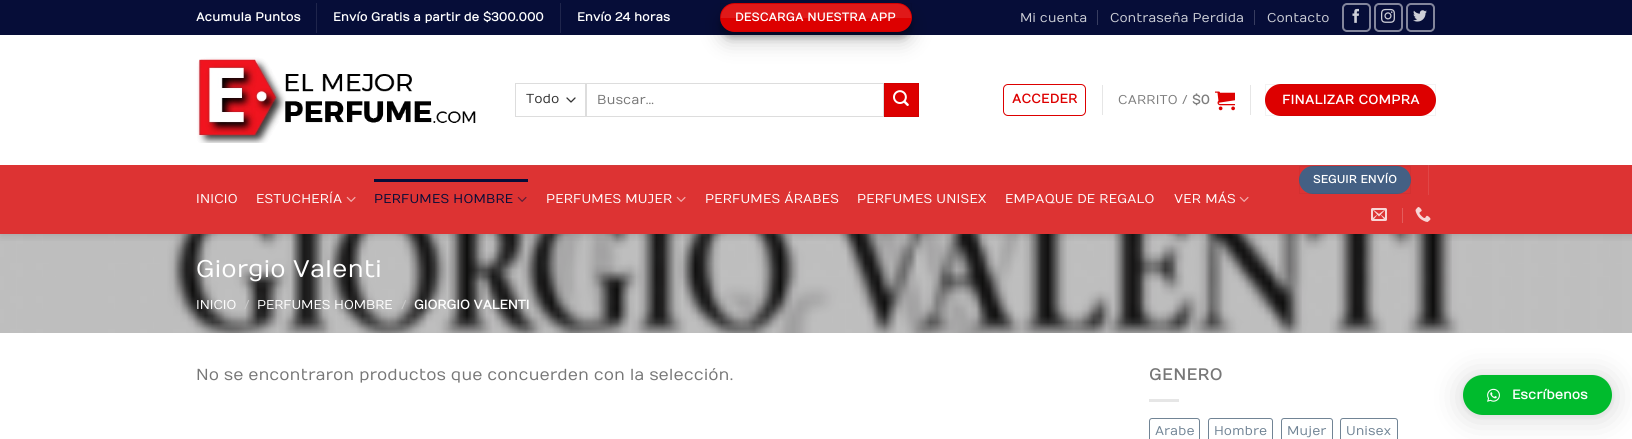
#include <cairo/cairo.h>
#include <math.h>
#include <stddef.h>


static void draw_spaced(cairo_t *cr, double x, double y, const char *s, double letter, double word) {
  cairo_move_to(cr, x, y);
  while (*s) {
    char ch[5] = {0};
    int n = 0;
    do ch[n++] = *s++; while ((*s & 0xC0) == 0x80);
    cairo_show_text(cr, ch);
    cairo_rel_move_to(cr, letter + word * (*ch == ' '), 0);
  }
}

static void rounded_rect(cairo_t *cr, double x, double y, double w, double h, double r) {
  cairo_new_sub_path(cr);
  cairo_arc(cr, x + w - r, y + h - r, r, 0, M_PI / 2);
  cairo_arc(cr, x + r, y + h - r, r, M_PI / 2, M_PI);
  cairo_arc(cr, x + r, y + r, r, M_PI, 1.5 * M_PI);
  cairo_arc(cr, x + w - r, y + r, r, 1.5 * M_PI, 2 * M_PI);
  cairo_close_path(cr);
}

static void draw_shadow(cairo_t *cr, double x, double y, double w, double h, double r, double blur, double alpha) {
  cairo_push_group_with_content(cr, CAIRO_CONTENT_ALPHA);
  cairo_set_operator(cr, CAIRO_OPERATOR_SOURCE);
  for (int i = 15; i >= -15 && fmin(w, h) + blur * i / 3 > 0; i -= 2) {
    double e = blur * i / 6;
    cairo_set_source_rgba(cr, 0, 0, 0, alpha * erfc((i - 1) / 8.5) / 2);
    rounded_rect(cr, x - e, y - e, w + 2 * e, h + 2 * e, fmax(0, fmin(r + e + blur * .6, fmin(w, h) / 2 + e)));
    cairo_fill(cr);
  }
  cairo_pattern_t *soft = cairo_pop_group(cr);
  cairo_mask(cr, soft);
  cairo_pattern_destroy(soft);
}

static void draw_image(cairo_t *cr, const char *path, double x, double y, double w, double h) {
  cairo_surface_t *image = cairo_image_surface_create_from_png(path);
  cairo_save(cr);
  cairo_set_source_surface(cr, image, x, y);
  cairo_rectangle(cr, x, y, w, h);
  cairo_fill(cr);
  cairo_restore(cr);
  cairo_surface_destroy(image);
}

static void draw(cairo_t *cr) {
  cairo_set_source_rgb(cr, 1, 1, 1);
  cairo_paint(cr);
  draw_image(cr, "images/11.png", 0, 234, 1632, 99);
  cairo_save(cr);
  cairo_rectangle(cr, 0, 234, 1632, 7);
  cairo_clip(cr);
  cairo_set_source_rgb(cr, 0, 0, 0);
  draw_shadow(cr, 1, 1, 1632, 234, 0, 5, 0.15);
  cairo_restore(cr);
  cairo_set_source_rgb(cr, 6 / 255.0, 13 / 255.0, 56 / 255.0);
  cairo_rectangle(cr, 0, 0, 1632, 35);
  cairo_fill(cr);
  cairo_set_source_rgb(cr, 31 / 255.0, 37 / 255.0, 76 / 255.0);
  cairo_rectangle(cr, 316, 3, 1, 30);
  cairo_fill(cr);
  cairo_rectangle(cr, 560, 3, 1, 30);
  cairo_fill(cr);
  cairo_set_source_rgb(cr, 0, 0, 0);
  draw_shadow(cr, 720, 9, 192, 29, 14.5, 3, 0.22);
  draw_shadow(cr, 720, 13, 192, 29, 14.5, 10, 0.19);
  cairo_set_source_rgb(cr, 221 / 255.0, 0, 0);
  rounded_rect(cr, 720, 3, 192, 29, 14.5);
  cairo_fill(cr);
  cairo_rectangle(cr, 720.5, 3.5, 191, 28);
  cairo_set_source_rgba(cr, 0, 0, 0, 0.05);
  cairo_set_line_width(cr, 1);
  cairo_stroke(cr);
  cairo_set_source_rgba(cr, 1, 1, 1, 0.1);
  cairo_new_path(cr);
  cairo_move_to(cr, 734.5, 4);
  cairo_line_to(cr, 897.5, 4);
  cairo_curve_to(cr, 905, 4, 911, 10, 911, 17.5);
  cairo_line_to(cr, 911, 18);
  cairo_line_to(cr, 721, 18);
  cairo_line_to(cr, 721, 17.5);
  cairo_curve_to(cr, 721, 10, 727, 4, 734.5, 4);
  cairo_close_path(cr);
  cairo_fill(cr);
  cairo_set_source_rgb(cr, 56 / 255.0, 61 / 255.0, 96 / 255.0);
  cairo_rectangle(cr, 1097, 10, 1, 15);
  cairo_fill(cr);
  cairo_rectangle(cr, 1254, 10, 1, 15);
  cairo_fill(cr);
  rounded_rect(cr, 1343, 4, 27, 27, 4);
  cairo_set_source_rgb(cr, 131 / 255.0, 134 / 255.0, 156 / 255.0);
  cairo_set_line_width(cr, 2);
  cairo_stroke(cr);
  draw_image(cr, "images/1.png", 1352, 8, 7, 15);
  rounded_rect(cr, 1375, 4, 27, 27, 4);
  cairo_stroke(cr);
  draw_image(cr, "images/2.png", 1381, 8, 14, 15);
  rounded_rect(cr, 1407, 4, 27, 27, 4);
  cairo_stroke(cr);
  draw_image(cr, "images/3.png", 1413, 10, 14, 12);
  draw_image(cr, "images/4.png", 197, 57, 279, 86);
  cairo_new_path(cr);
  cairo_move_to(cr, 567, 98);
  cairo_line_to(cr, 571, 102);
  cairo_line_to(cr, 575, 98);
  cairo_set_source_rgb(cr, 51 / 255.0, 51 / 255.0, 51 / 255.0);
  cairo_set_line_width(cr, 1.3);
  cairo_set_line_cap(cr, CAIRO_LINE_CAP_ROUND);
  cairo_set_line_join(cr, CAIRO_LINE_JOIN_ROUND);
  cairo_stroke(cr);
  cairo_rectangle(cr, 515.5, 83.5, 70, 33);
  cairo_set_source_rgb(cr, 221 / 255.0, 221 / 255.0, 221 / 255.0);
  cairo_set_line_width(cr, 1);
  cairo_set_line_cap(cr, CAIRO_LINE_CAP_BUTT);
  cairo_set_line_join(cr, CAIRO_LINE_JOIN_MITER);
  cairo_stroke(cr);
  cairo_rectangle(cr, 586.5, 83.5, 297, 33);
  cairo_stroke(cr);
  cairo_set_source_rgb(cr, 221 / 255.0, 0, 0);
  cairo_rectangle(cr, 884.5, 83.5, 34, 33);
  cairo_fill_preserve(cr);
  cairo_set_source_rgb(cr, 210 / 255.0, 0, 0);
  cairo_stroke(cr);
  draw_image(cr, "images/5.png", 893, 90, 16, 16);
  rounded_rect(cr, 1003.5, 84.5, 82, 31, 4.5);
  cairo_set_source_rgb(cr, 221 / 255.0, 0, 0);
  cairo_stroke(cr);
  cairo_set_source_rgb(cr, 230 / 255.0, 230 / 255.0, 230 / 255.0);
  cairo_rectangle(cr, 1102, 85, 1, 30);
  cairo_fill(cr);
  draw_image(cr, "images/6.png", 1215, 91, 20, 20);
  cairo_rectangle(cr, 1250, 85, 1, 30);
  cairo_fill(cr);
  cairo_set_source_rgb(cr, 221 / 255.0, 0, 0);
  rounded_rect(cr, 1265, 84, 171, 32, 16);
  cairo_fill(cr);
  cairo_rectangle(cr, 1265.5, 84.5, 170, 31);
  cairo_set_source_rgba(cr, 0, 0, 0, 0.05);
  cairo_stroke(cr);
  cairo_set_source_rgb(cr, 221 / 255.0, 51 / 255.0, 51 / 255.0);
  cairo_rectangle(cr, 0, 165, 1632, 69);
  cairo_fill(cr);
  cairo_set_source_rgb(cr, 211 / 255.0, 58 / 255.0, 58 / 255.0);
  cairo_rectangle(cr, 196, 165, 1240, 1);
  cairo_fill(cr);
  cairo_set_source_rgb(cr, 68 / 255.0, 96 / 255.0, 132 / 255.0);
  rounded_rect(cr, 1299, 166, 112, 28, 14);
  cairo_fill(cr);
  cairo_rectangle(cr, 1299.5, 166.5, 111, 27);
  cairo_set_source_rgba(cr, 0, 0, 0, 0.05);
  cairo_stroke(cr);
  cairo_set_source_rgb(cr, 224 / 255.0, 71 / 255.0, 71 / 255.0);
  cairo_rectangle(cr, 1428, 165, 1, 30);
  cairo_fill(cr);
  cairo_set_source_rgb(cr, 214 / 255.0, 76 / 255.0, 76 / 255.0);
  cairo_rectangle(cr, 1428, 165, 1, 1);
  cairo_fill(cr);
  draw_image(cr, "images/7.png", 1371, 208, 16, 13);
  cairo_set_source_rgb(cr, 228 / 255.0, 92 / 255.0, 92 / 255.0);
  cairo_rectangle(cr, 1402, 208, 1, 15);
  cairo_fill(cr);
  draw_image(cr, "images/8.png", 1415, 207, 16, 15);
  draw_image(cr, "images/9.png", 346, 196, 10, 6);
  cairo_set_source_rgb(cr, 6 / 255.0, 13 / 255.0, 56 / 255.0);
  cairo_rectangle(cr, 374, 179, 154, 3);
  cairo_fill(cr);
  draw_image(cr, "images/10.png", 517, 196, 10, 6);
  draw_image(cr, "images/9.png", 676, 196, 10, 6);
  draw_image(cr, "images/9.png", 1239, 196, 10, 6);
  cairo_set_source_rgb(cr, 230 / 255.0, 230 / 255.0, 230 / 255.0);
  cairo_rectangle(cr, 1149, 399, 30, 3);
  cairo_fill(cr);
  rounded_rect(cr, 1149.5, 418.5, 50, 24, 2.5);
  cairo_set_source_rgb(cr, 113 / 255.0, 132 / 255.0, 149 / 255.0);
  cairo_stroke(cr);
  rounded_rect(cr, 1208.5, 418.5, 64, 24, 2.5);
  cairo_stroke(cr);
  rounded_rect(cr, 1281.5, 418.5, 51, 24, 2.5);
  cairo_stroke(cr);
  rounded_rect(cr, 1340.5, 418.5, 57, 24, 2.5);
  cairo_stroke(cr);
  cairo_set_source_rgb(cr, 0, 0, 0);
  draw_shadow(cr, 1463, 377, 149, 40, 20, 16, 0.16);
  draw_shadow(cr, 1463, 376, 149, 40, 20, 3, 0.06);
  cairo_set_source_rgb(cr, 0, 187 / 255.0, 45 / 255.0);
  rounded_rect(cr, 1463, 375, 149, 40, 20);
  cairo_fill(cr);
  draw_image(cr, "images/12.png", 1487, 388, 13, 14);
  cairo_select_font_face(cr, "Numans", CAIRO_FONT_SLANT_NORMAL, CAIRO_FONT_WEIGHT_BOLD);
  cairo_set_font_size(cr, 12);
  cairo_set_source_rgb(cr, 1, 1, 1);
  cairo_move_to(cr, 196, 21);
  cairo_show_text(cr, "Acumula Puntos");
  cairo_move_to(cr, 333, 21);
  cairo_show_text(cr, "Envío Gratis a partir de $300.000");
  cairo_move_to(cr, 577, 21);
  cairo_show_text(cr, "Envío 24 horas");
  cairo_set_font_size(cr, 11.6);
  draw_spaced(cr, 735, 21, "DESCARGA NUESTRA APP", 0.3, 0);
  cairo_select_font_face(cr, "Numans", CAIRO_FONT_SLANT_NORMAL, CAIRO_FONT_WEIGHT_NORMAL);
  cairo_set_font_size(cr, 12.75);
  cairo_set_source_rgb(cr, 205 / 255.0, 207 / 255.0, 215 / 255.0);
  cairo_move_to(cr, 1020, 22);
  cairo_show_text(cr, "Mi cuenta");
  cairo_move_to(cr, 1110, 22);
  cairo_show_text(cr, "Contraseña Perdida");
  cairo_move_to(cr, 1267, 22);
  cairo_show_text(cr, "Contacto");
  cairo_set_font_size(cr, 13);
  cairo_set_source_rgb(cr, 51 / 255.0, 51 / 255.0, 51 / 255.0);
  cairo_move_to(cr, 526, 103);
  cairo_show_text(cr, "Todo");
  cairo_set_source_rgb(cr, 119 / 255.0, 119 / 255.0, 119 / 255.0);
  cairo_move_to(cr, 597, 104);
  cairo_show_text(cr, "Buscar…");
  cairo_select_font_face(cr, "Numans", CAIRO_FONT_SLANT_NORMAL, CAIRO_FONT_WEIGHT_BOLD);
  cairo_set_font_size(cr, 12.75);
  cairo_set_source_rgb(cr, 221 / 255.0, 0, 0);
  draw_spaced(cr, 1012, 103, "ACCEDER", 0.4, 0);
  cairo_select_font_face(cr, "Numans", CAIRO_FONT_SLANT_NORMAL, CAIRO_FONT_WEIGHT_NORMAL);
  cairo_set_source_rgb(cr, 125 / 255.0, 125 / 255.0, 125 / 255.0);
  draw_spaced(cr, 1118, 104, "CARRITO /", 0.25, 0);
  cairo_select_font_face(cr, "Numans", CAIRO_FONT_SLANT_NORMAL, CAIRO_FONT_WEIGHT_BOLD);
  draw_spaced(cr, 1192, 104, "$0", 0.25, 0);
  cairo_set_source_rgb(cr, 1, 1, 1);
  draw_spaced(cr, 1282, 104, "FINALIZAR COMPRA", 0.4, 0);
  cairo_set_font_size(cr, 11);
  draw_spaced(cr, 1313, 183, "SEGUIR ENVÍO", 0.25, 0);
  cairo_select_font_face(cr, "Numans", CAIRO_FONT_SLANT_NORMAL, CAIRO_FONT_WEIGHT_NORMAL);
  cairo_set_font_size(cr, 12.75);
  draw_spaced(cr, 196, 203, "INICIO", 0.25, 0);
  draw_spaced(cr, 256, 203, "ESTUCHERÍA", 0.25, 0);
  cairo_set_source_rgb(cr, 6 / 255.0, 13 / 255.0, 56 / 255.0);
  draw_spaced(cr, 374, 203, "PERFUMES HOMBRE", 0.25, 0);
  cairo_set_source_rgb(cr, 1, 1, 1);
  draw_spaced(cr, 546, 203, "PERFUMES MUJER", 0.25, 0);
  draw_spaced(cr, 705, 203, "PERFUMES ÁRABES", 0.25, 0);
  draw_spaced(cr, 857, 203, "PERFUMES UNISEX", 0.25, 0);
  draw_spaced(cr, 1005, 203, "EMPAQUE DE REGALO", 0.25, 0);
  draw_spaced(cr, 1174, 203, "VER MÁS", 0.25, 0);
  cairo_set_font_size(cr, 24);
  cairo_move_to(cr, 196, 277);
  cairo_show_text(cr, "Giorgio Valenti");
  cairo_set_font_size(cr, 12.75);
  cairo_move_to(cr, 196, 309);
  cairo_show_text(cr, "INICIO");
  cairo_set_source_rgb(cr, 200 / 255.0, 200 / 255.0, 200 / 255.0);
  cairo_move_to(cr, 244, 309);
  cairo_show_text(cr, "/");
  cairo_set_source_rgb(cr, 1, 1, 1);
  cairo_move_to(cr, 257, 309);
  cairo_show_text(cr, "PERFUMES HOMBRE");
  cairo_set_source_rgb(cr, 200 / 255.0, 200 / 255.0, 200 / 255.0);
  cairo_move_to(cr, 401, 309);
  cairo_show_text(cr, "/");
  cairo_select_font_face(cr, "Numans", CAIRO_FONT_SLANT_NORMAL, CAIRO_FONT_WEIGHT_BOLD);
  cairo_set_source_rgb(cr, 1, 1, 1);
  cairo_move_to(cr, 414, 309);
  cairo_show_text(cr, "GIORGIO VALENTI");
  cairo_select_font_face(cr, "Numans", CAIRO_FONT_SLANT_NORMAL, CAIRO_FONT_WEIGHT_NORMAL);
  cairo_set_font_size(cr, 16);
  cairo_set_source_rgb(cr, 119 / 255.0, 119 / 255.0, 119 / 255.0);
  cairo_move_to(cr, 196, 380);
  cairo_show_text(cr, "No se encontraron productos que concuerden con la selección.");
  cairo_select_font_face(cr, "Numans", CAIRO_FONT_SLANT_NORMAL, CAIRO_FONT_WEIGHT_BOLD);
  draw_spaced(cr, 1149, 380, "GENERO", 0.75, 0);
  cairo_select_font_face(cr, "Numans", CAIRO_FONT_SLANT_NORMAL, CAIRO_FONT_WEIGHT_NORMAL);
  cairo_set_font_size(cr, 12.75);
  cairo_set_source_rgb(cr, 113 / 255.0, 132 / 255.0, 149 / 255.0);
  cairo_move_to(cr, 1155, 435);
  cairo_show_text(cr, "Arabe");
  cairo_move_to(cr, 1214, 435);
  cairo_show_text(cr, "Hombre");
  cairo_move_to(cr, 1287, 435);
  cairo_show_text(cr, "Mujer");
  cairo_move_to(cr, 1346, 435);
  cairo_show_text(cr, "Unisex");
  cairo_select_font_face(cr, "Numans", CAIRO_FONT_SLANT_NORMAL, CAIRO_FONT_WEIGHT_BOLD);
  cairo_set_font_size(cr, 13);
  cairo_set_source_rgb(cr, 1, 1, 1);
  cairo_move_to(cr, 1512, 399);
  cairo_show_text(cr, "Escríbenos");
}

int main(void) {
  cairo_surface_t *surface = cairo_image_surface_create(CAIRO_FORMAT_RGB24, 1632, 439);
  cairo_t *cr = cairo_create(surface);
  cairo_font_options_t *options = cairo_font_options_create();
  cairo_font_options_set_hint_metrics(options, CAIRO_HINT_METRICS_OFF);
  cairo_font_options_set_hint_style(options, CAIRO_HINT_STYLE_NONE);
  cairo_set_font_options(cr, options);
  cairo_set_miter_limit(cr, 4);
  draw(cr);
  cairo_surface_write_to_png(surface, "out.png");
  cairo_font_options_destroy(options);
  cairo_destroy(cr);
  cairo_surface_destroy(surface);
  return 0;
}
